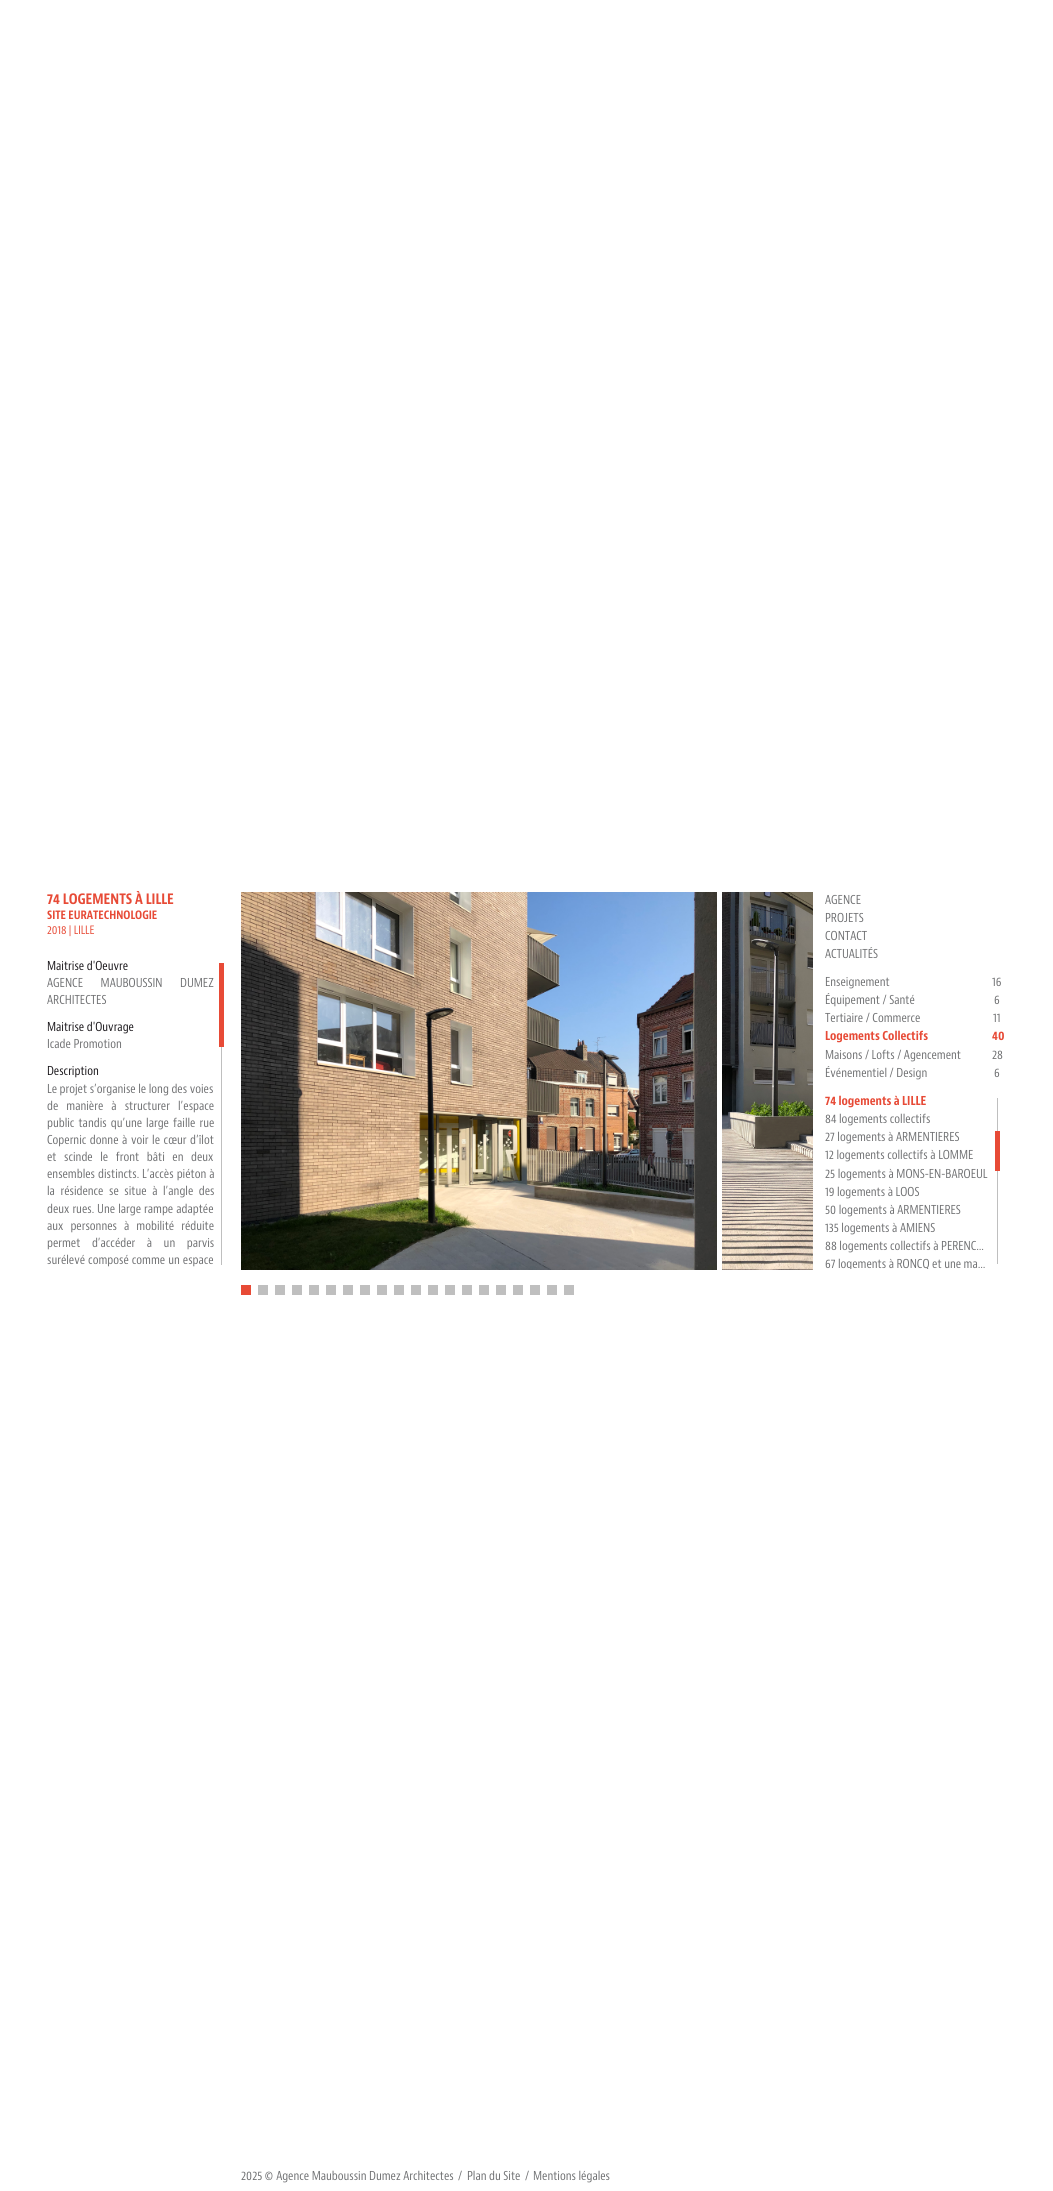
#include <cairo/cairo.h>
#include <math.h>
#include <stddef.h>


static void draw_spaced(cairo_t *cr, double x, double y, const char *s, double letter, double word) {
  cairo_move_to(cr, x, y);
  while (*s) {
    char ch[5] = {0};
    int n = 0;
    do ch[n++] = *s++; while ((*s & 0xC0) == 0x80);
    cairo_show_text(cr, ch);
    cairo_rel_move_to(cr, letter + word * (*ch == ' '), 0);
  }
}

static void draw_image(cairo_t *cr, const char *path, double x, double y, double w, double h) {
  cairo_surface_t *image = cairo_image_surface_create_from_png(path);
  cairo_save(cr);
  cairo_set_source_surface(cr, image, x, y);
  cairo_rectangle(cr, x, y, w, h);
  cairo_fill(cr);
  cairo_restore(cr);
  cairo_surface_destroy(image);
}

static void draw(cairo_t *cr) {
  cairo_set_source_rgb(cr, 1, 1, 1);
  cairo_paint(cr);
  cairo_set_source_rgb(cr, 231 / 255.0, 74 / 255.0, 54 / 255.0);
  cairo_rectangle(cr, 219, 963, 5, 84);
  cairo_fill(cr);
  cairo_set_source_rgb(cr, 191 / 255.0, 191 / 255.0, 191 / 255.0);
  cairo_rectangle(cr, 221, 1047, 1, 218);
  cairo_fill(cr);
  draw_image(cr, "images/1.png", 241, 892, 476, 378);
  draw_image(cr, "images/2.png", 722, 892, 91, 378);
  cairo_set_source_rgb(cr, 231 / 255.0, 74 / 255.0, 54 / 255.0);
  cairo_rectangle(cr, 241, 1285, 10, 10);
  cairo_fill(cr);
  cairo_set_source_rgb(cr, 191 / 255.0, 191 / 255.0, 191 / 255.0);
  cairo_rectangle(cr, 258, 1285, 10, 10);
  cairo_fill(cr);
  cairo_rectangle(cr, 275, 1285, 10, 10);
  cairo_fill(cr);
  cairo_rectangle(cr, 292, 1285, 10, 10);
  cairo_fill(cr);
  cairo_rectangle(cr, 309, 1285, 10, 10);
  cairo_fill(cr);
  cairo_rectangle(cr, 326, 1285, 10, 10);
  cairo_fill(cr);
  cairo_rectangle(cr, 343, 1285, 10, 10);
  cairo_fill(cr);
  cairo_rectangle(cr, 360, 1285, 10, 10);
  cairo_fill(cr);
  cairo_rectangle(cr, 377, 1285, 10, 10);
  cairo_fill(cr);
  cairo_rectangle(cr, 394, 1285, 10, 10);
  cairo_fill(cr);
  cairo_rectangle(cr, 411, 1285, 10, 10);
  cairo_fill(cr);
  cairo_rectangle(cr, 428, 1285, 10, 10);
  cairo_fill(cr);
  cairo_rectangle(cr, 445, 1285, 10, 10);
  cairo_fill(cr);
  cairo_rectangle(cr, 462, 1285, 10, 10);
  cairo_fill(cr);
  cairo_rectangle(cr, 479, 1285, 10, 10);
  cairo_fill(cr);
  cairo_rectangle(cr, 496, 1285, 10, 10);
  cairo_fill(cr);
  cairo_rectangle(cr, 513, 1285, 10, 10);
  cairo_fill(cr);
  cairo_rectangle(cr, 530, 1285, 10, 10);
  cairo_fill(cr);
  cairo_rectangle(cr, 547, 1285, 10, 10);
  cairo_fill(cr);
  cairo_rectangle(cr, 564, 1285, 10, 10);
  cairo_fill(cr);
  cairo_rectangle(cr, 997, 1098, 1, 166);
  cairo_fill(cr);
  cairo_set_source_rgb(cr, 231 / 255.0, 74 / 255.0, 54 / 255.0);
  cairo_rectangle(cr, 995, 1131, 5, 40);
  cairo_fill(cr);
  cairo_select_font_face(cr, "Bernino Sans", CAIRO_FONT_SLANT_NORMAL, CAIRO_FONT_WEIGHT_BOLD);
  cairo_set_font_size(cr, 14);
  cairo_move_to(cr, 47, 904);
  cairo_show_text(cr, "74 LOGEMENTS À LILLE");
  cairo_set_font_size(cr, 11.25);
  cairo_move_to(cr, 47, 919);
  cairo_show_text(cr, "SITE EURATECHNOLOGIE");
  cairo_select_font_face(cr, "Bernino Sans", CAIRO_FONT_SLANT_NORMAL, CAIRO_FONT_WEIGHT_NORMAL);
  cairo_move_to(cr, 47, 934);
  cairo_show_text(cr, "2018 | LILLE");
  cairo_set_font_size(cr, 12);
  cairo_set_source_rgb(cr, 26 / 255.0, 23 / 255.0, 27 / 255.0);
  cairo_move_to(cr, 47, 970);
  cairo_show_text(cr, "Maitrise d'Oeuvre");
  cairo_set_source_rgb(cr, 112 / 255.0, 113 / 255.0, 115 / 255.0);
  draw_spaced(cr, 47, 987, "AGENCE MAUBOUSSIN DUMEZ", 0, 15);
  cairo_move_to(cr, 47, 1004);
  cairo_show_text(cr, "ARCHITECTES");
  cairo_set_source_rgb(cr, 26 / 255.0, 23 / 255.0, 27 / 255.0);
  cairo_move_to(cr, 47, 1031);
  cairo_show_text(cr, "Maitrise d'Ouvrage");
  cairo_set_source_rgb(cr, 112 / 255.0, 113 / 255.0, 115 / 255.0);
  cairo_move_to(cr, 47, 1048);
  cairo_show_text(cr, "Icade Promotion");
  cairo_set_source_rgb(cr, 26 / 255.0, 23 / 255.0, 27 / 255.0);
  cairo_move_to(cr, 47, 1075);
  cairo_show_text(cr, "Description");
  cairo_set_source_rgb(cr, 112 / 255.0, 113 / 255.0, 115 / 255.0);
  cairo_move_to(cr, 47, 1093);
  cairo_show_text(cr, "Le projet s’organise le long des voies");
  draw_spaced(cr, 47, 1110, "de manière à structurer l’espace", 0, 5.5);
  draw_spaced(cr, 47, 1127, "public tandis qu’une large faille rue", 0, 1.5);
  draw_spaced(cr, 47, 1144, "Copernic donne à voir le cœur d’îlot", 0, 1);
  draw_spaced(cr, 47, 1161, "et scinde le front bâti en deux", 0, 5);
  draw_spaced(cr, 47, 1178, "ensembles distincts. L’accès piéton à", 0, 0.5);
  draw_spaced(cr, 47, 1195, "la résidence se situe à l’angle des", 0, 3);
  draw_spaced(cr, 47, 1213, "deux rues. Une large rampe adaptée", 0, 0.5);
  draw_spaced(cr, 47, 1230, "aux personnes à mobilité réduite", 0, 4.5);
  draw_spaced(cr, 47, 1247, "permet d’accéder à un parvis", 0, 9);
  draw_spaced(cr, 47, 1264, "surélevé composé comme un espace", 0, 0.5);
  cairo_move_to(cr, 825, 904);
  cairo_show_text(cr, "AGENCE");
  cairo_move_to(cr, 825, 922);
  cairo_show_text(cr, "PROJETS");
  cairo_move_to(cr, 825, 940);
  cairo_show_text(cr, "CONTACT");
  cairo_move_to(cr, 825, 958);
  cairo_show_text(cr, "ACTUALITÉS");
  cairo_move_to(cr, 825, 986);
  cairo_show_text(cr, "Enseignement");
  cairo_move_to(cr, 992, 986);
  cairo_show_text(cr, "16");
  cairo_move_to(cr, 825, 1004);
  cairo_show_text(cr, "Équipement / Santé");
  cairo_move_to(cr, 994, 1004);
  cairo_show_text(cr, "6");
  cairo_move_to(cr, 825, 1022);
  cairo_show_text(cr, "Tertiaire / Commerce");
  cairo_move_to(cr, 993, 1022);
  cairo_show_text(cr, "11");
  cairo_select_font_face(cr, "Bernino Sans", CAIRO_FONT_SLANT_NORMAL, CAIRO_FONT_WEIGHT_BOLD);
  cairo_set_source_rgb(cr, 231 / 255.0, 74 / 255.0, 54 / 255.0);
  cairo_move_to(cr, 825, 1040);
  cairo_show_text(cr, "Logements Collectifs");
  cairo_move_to(cr, 992, 1040);
  cairo_show_text(cr, "40");
  cairo_select_font_face(cr, "Bernino Sans", CAIRO_FONT_SLANT_NORMAL, CAIRO_FONT_WEIGHT_NORMAL);
  cairo_set_source_rgb(cr, 112 / 255.0, 113 / 255.0, 115 / 255.0);
  cairo_move_to(cr, 825, 1059);
  cairo_show_text(cr, "Maisons / Lofts / Agencement");
  cairo_move_to(cr, 992, 1059);
  cairo_show_text(cr, "28");
  cairo_move_to(cr, 825, 1077);
  cairo_show_text(cr, "Événementiel / Design");
  cairo_move_to(cr, 994, 1077);
  cairo_show_text(cr, "6");
  cairo_select_font_face(cr, "Bernino Sans", CAIRO_FONT_SLANT_NORMAL, CAIRO_FONT_WEIGHT_BOLD);
  cairo_set_source_rgb(cr, 231 / 255.0, 74 / 255.0, 54 / 255.0);
  cairo_move_to(cr, 825, 1105);
  cairo_show_text(cr, "74 logements à LILLE");
  cairo_select_font_face(cr, "Bernino Sans", CAIRO_FONT_SLANT_NORMAL, CAIRO_FONT_WEIGHT_NORMAL);
  cairo_set_source_rgb(cr, 112 / 255.0, 113 / 255.0, 115 / 255.0);
  cairo_move_to(cr, 825, 1123);
  cairo_show_text(cr, "84 logements collectifs");
  cairo_move_to(cr, 825, 1141);
  cairo_show_text(cr, "27 logements à ARMENTIERES");
  cairo_move_to(cr, 825, 1159);
  cairo_show_text(cr, "12 logements collectifs à LOMME");
  cairo_move_to(cr, 825, 1178);
  cairo_show_text(cr, "25 logements à MONS-EN-BAROEUL");
  cairo_move_to(cr, 825, 1196);
  cairo_show_text(cr, "19 logements à LOOS");
  cairo_move_to(cr, 825, 1214);
  cairo_show_text(cr, "50 logements à ARMENTIERES");
  cairo_move_to(cr, 825, 1232);
  cairo_show_text(cr, "135 logements à AMIENS");
  cairo_move_to(cr, 825, 1250);
  cairo_show_text(cr, "88 logements collectifs à PERENC…");
  cairo_save(cr);
  cairo_rectangle(cr, 823, 1256, 167, 13);
  cairo_clip(cr);
  cairo_move_to(cr, 825, 1268);
  cairo_show_text(cr, "67 logements à RONCQ et une ma…");
  cairo_restore(cr);
  cairo_move_to(cr, 241, 2180);
  cairo_show_text(cr, "2025 © Agence Mauboussin Dumez Architectes");
  cairo_move_to(cr, 458, 2180);
  cairo_show_text(cr, "/");
  cairo_move_to(cr, 467, 2180);
  cairo_show_text(cr, "Plan du Site");
  cairo_move_to(cr, 525, 2180);
  cairo_show_text(cr, "/");
  cairo_move_to(cr, 533, 2180);
  cairo_show_text(cr, "Mentions légales");
}

int main(void) {
  cairo_surface_t *surface = cairo_image_surface_create(CAIRO_FORMAT_RGB24, 1053, 2191);
  cairo_t *cr = cairo_create(surface);
  cairo_font_options_t *options = cairo_font_options_create();
  cairo_font_options_set_hint_metrics(options, CAIRO_HINT_METRICS_OFF);
  cairo_font_options_set_hint_style(options, CAIRO_HINT_STYLE_NONE);
  cairo_set_font_options(cr, options);
  cairo_set_miter_limit(cr, 4);
  draw(cr);
  cairo_surface_write_to_png(surface, "out.png");
  cairo_font_options_destroy(options);
  cairo_destroy(cr);
  cairo_surface_destroy(surface);
  return 0;
}
